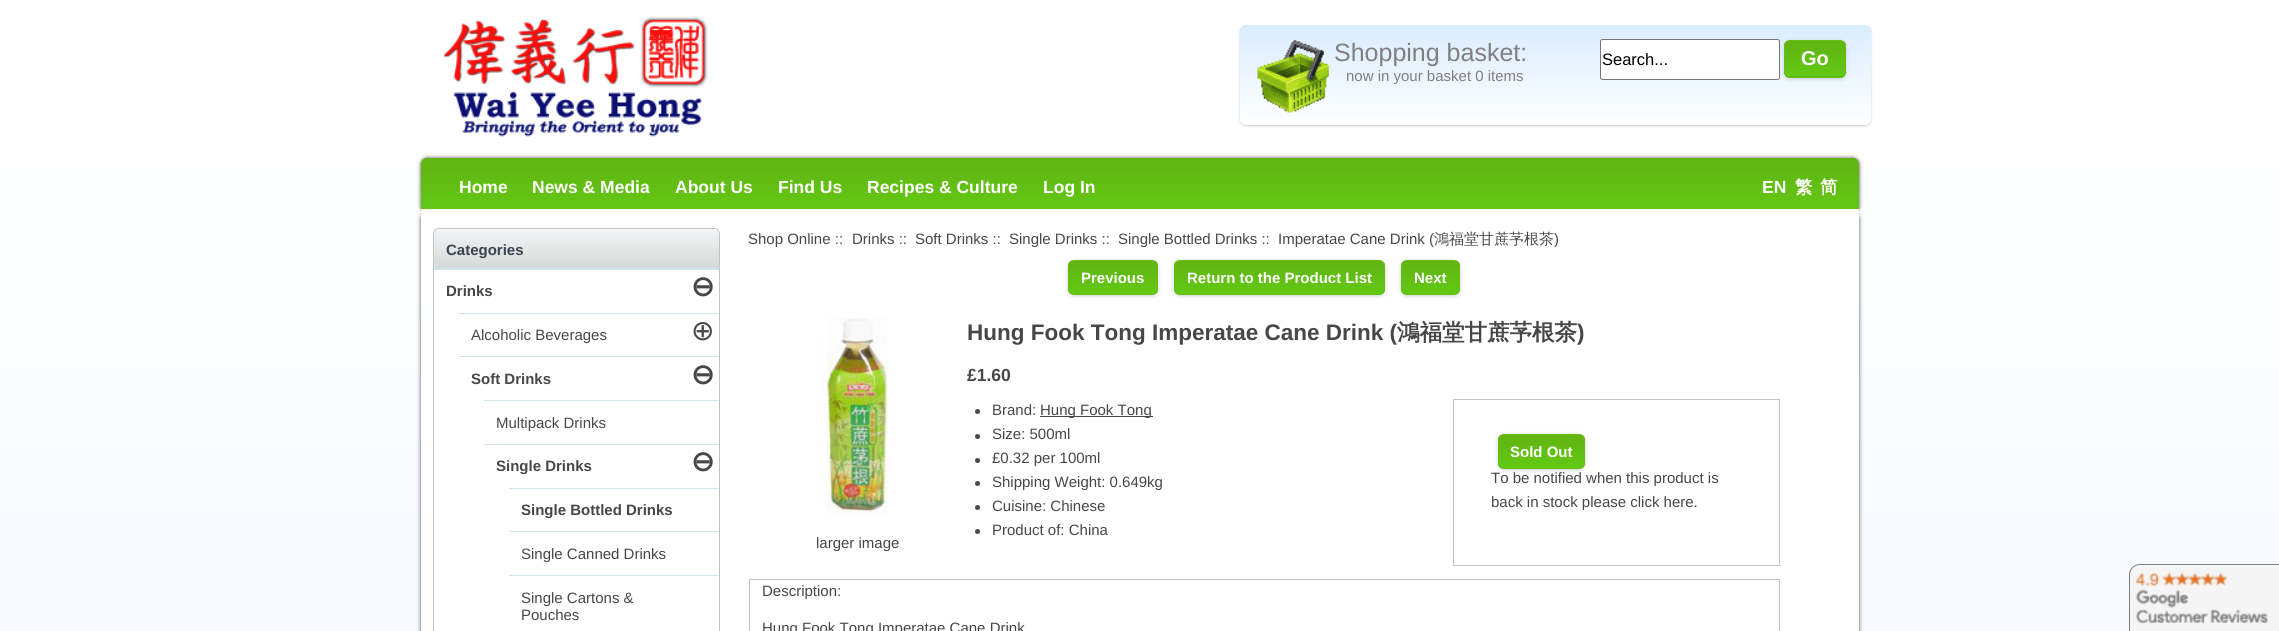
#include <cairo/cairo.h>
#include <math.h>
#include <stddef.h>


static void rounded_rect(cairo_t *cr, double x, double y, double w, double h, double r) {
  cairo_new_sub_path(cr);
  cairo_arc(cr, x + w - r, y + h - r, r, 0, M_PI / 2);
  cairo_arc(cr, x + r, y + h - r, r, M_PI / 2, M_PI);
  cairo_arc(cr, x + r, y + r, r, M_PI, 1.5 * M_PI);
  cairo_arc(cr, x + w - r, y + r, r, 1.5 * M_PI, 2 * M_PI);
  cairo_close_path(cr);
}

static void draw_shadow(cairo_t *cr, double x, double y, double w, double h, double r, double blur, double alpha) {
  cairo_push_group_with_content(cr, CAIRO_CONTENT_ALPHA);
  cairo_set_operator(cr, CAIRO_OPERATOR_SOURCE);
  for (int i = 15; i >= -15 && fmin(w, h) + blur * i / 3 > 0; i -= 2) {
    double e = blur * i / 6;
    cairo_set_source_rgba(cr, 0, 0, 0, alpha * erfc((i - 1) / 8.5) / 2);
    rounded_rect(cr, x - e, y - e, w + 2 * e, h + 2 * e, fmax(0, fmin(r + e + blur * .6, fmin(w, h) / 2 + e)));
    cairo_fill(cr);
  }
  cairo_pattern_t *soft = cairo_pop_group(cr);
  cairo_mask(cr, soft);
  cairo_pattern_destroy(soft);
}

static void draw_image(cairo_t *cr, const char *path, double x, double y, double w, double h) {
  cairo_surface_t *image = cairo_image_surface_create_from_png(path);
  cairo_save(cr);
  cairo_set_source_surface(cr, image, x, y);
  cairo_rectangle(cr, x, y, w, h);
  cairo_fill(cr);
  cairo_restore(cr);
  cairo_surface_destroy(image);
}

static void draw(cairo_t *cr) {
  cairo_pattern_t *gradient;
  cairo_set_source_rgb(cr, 1, 1, 1);
  cairo_paint(cr);
  gradient = cairo_pattern_create_linear(1140, 0, 1140, 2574);
  cairo_pattern_add_color_stop_rgba(gradient, 0, 1, 1, 1, 1);
  cairo_pattern_add_color_stop_rgba(gradient, 1, 217 / 255.0, 235 / 255.0, 1, 1);
  cairo_set_source(cr, gradient);
  cairo_pattern_destroy(gradient);
  cairo_rectangle(cr, 0, 169, 2279, 462);
  cairo_fill(cr);
  draw_image(cr, "images/1.png", 443, 16, 265, 121);
  cairo_set_source_rgb(cr, 204 / 255.0, 204 / 255.0, 204 / 255.0);
  draw_shadow(cr, 1240, 26, 631, 100, 6, 1, 1);
  gradient = cairo_pattern_create_linear(1556, 25, 1556, 125);
  cairo_pattern_add_color_stop_rgba(gradient, 0, 217 / 255.0, 236 / 255.0, 1, 1);
  cairo_pattern_add_color_stop_rgba(gradient, 1, 1, 1, 1, 1);
  cairo_set_source(cr, gradient);
  cairo_pattern_destroy(gradient);
  rounded_rect(cr, 1240, 25, 631, 100, 6);
  cairo_fill(cr);
  draw_image(cr, "images/2.png", 1257, 39, 72, 74);
  cairo_set_source_rgb(cr, 1, 1, 1);
  rounded_rect(cr, 1600.5, 39.5, 179, 40, 2);
  cairo_fill_preserve(cr);
  cairo_set_source_rgb(cr, 118 / 255.0, 118 / 255.0, 118 / 255.0);
  cairo_set_line_width(cr, 1);
  cairo_stroke(cr);
  cairo_set_source_rgb(cr, 204 / 255.0, 204 / 255.0, 204 / 255.0);
  draw_shadow(cr, 1784, 41, 62, 38, 6, 2, 1);
  cairo_save(cr);
  rounded_rect(cr, 1784, 40, 62, 38, 6);
  cairo_clip(cr);
  gradient = cairo_pattern_create_linear(1815, 41, 1815, 76);
  cairo_pattern_add_color_stop_rgba(gradient, 0, 98 / 255.0, 179 / 255.0, 18 / 255.0, 1);
  cairo_pattern_add_color_stop_rgba(gradient, 1, 98 / 255.0, 201 / 255.0, 20 / 255.0, 1);
  cairo_set_source(cr, gradient);
  cairo_pattern_destroy(gradient);
  cairo_rectangle(cr, 1784, 41, 62, 35);
  cairo_fill(cr);
  gradient = cairo_pattern_create_linear(1815, 76, 1815, 111);
  cairo_pattern_add_color_stop_rgba(gradient, 0, 98 / 255.0, 179 / 255.0, 18 / 255.0, 1);
  cairo_pattern_add_color_stop_rgba(gradient, 1, 98 / 255.0, 201 / 255.0, 20 / 255.0, 1);
  cairo_set_source(cr, gradient);
  cairo_pattern_destroy(gradient);
  cairo_rectangle(cr, 1784, 76, 62, 2);
  cairo_fill(cr);
  cairo_restore(cr);
  rounded_rect(cr, 1784.5, 40.5, 61, 37, 5.5);
  cairo_set_source_rgb(cr, 100 / 255.0, 190 / 255.0, 19 / 255.0);
  cairo_stroke(cr);
  cairo_set_source_rgb(cr, 74 / 255.0, 74 / 255.0, 74 / 255.0);
  draw_shadow(cr, 421, 158, 1438, 55, 6, 2, 1);
  gradient = cairo_pattern_create_linear(1140, 157, 1140, 213);
  cairo_pattern_add_color_stop_rgba(gradient, 0, 98 / 255.0, 179 / 255.0, 18 / 255.0, 1);
  cairo_pattern_add_color_stop_rgba(gradient, 1, 98 / 255.0, 201 / 255.0, 20 / 255.0, 1);
  cairo_set_source(cr, gradient);
  cairo_pattern_destroy(gradient);
  cairo_new_path(cr);
  cairo_move_to(cr, 427, 158);
  cairo_line_to(cr, 1853, 158);
  cairo_curve_to(cr, 1856.5, 158, 1859, 160.5, 1859, 164);
  cairo_line_to(cr, 1859, 213);
  cairo_line_to(cr, 421, 213);
  cairo_line_to(cr, 421, 164);
  cairo_curve_to(cr, 421, 160.5, 423.5, 158, 427, 158);
  cairo_close_path(cr);
  cairo_fill(cr);
  cairo_set_source_rgb(cr, 74 / 255.0, 74 / 255.0, 74 / 255.0);
  draw_shadow(cr, 421, 213, 1438, 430, 6, 2, 1);
  cairo_set_source_rgb(cr, 1, 1, 1);
  cairo_rectangle(cr, 421, 209, 1438, 422);
  cairo_fill(cr);
  rounded_rect(cr, 433.5, 228.5, 286, 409, 5.5);
  cairo_set_source_rgb(cr, 194 / 255.0, 194 / 255.0, 194 / 255.0);
  cairo_stroke(cr);
  gradient = cairo_pattern_create_linear(576, 229, 576, 268);
  cairo_pattern_add_color_stop_rgba(gradient, 0, 242 / 255.0, 245 / 255.0, 246 / 255.0, 1);
  cairo_pattern_add_color_stop_rgba(gradient, 1, 213 / 255.0, 217 / 255.0, 215 / 255.0, 1);
  cairo_set_source(cr, gradient);
  cairo_pattern_destroy(gradient);
  cairo_new_path(cr);
  cairo_move_to(cr, 440, 229);
  cairo_line_to(cr, 713, 229);
  cairo_curve_to(cr, 716.5, 229, 719, 231.5, 719, 235);
  cairo_line_to(cr, 719, 268);
  cairo_line_to(cr, 434, 268);
  cairo_line_to(cr, 434, 235);
  cairo_curve_to(cr, 434, 231.5, 436.5, 229, 440, 229);
  cairo_close_path(cr);
  cairo_fill(cr);
  cairo_set_source_rgb(cr, 207 / 255.0, 229 / 255.0, 233 / 255.0);
  cairo_rectangle(cr, 434, 268, 285, 2);
  cairo_fill(cr);
  cairo_rectangle(cr, 459, 313, 260, 1);
  cairo_fill(cr);
  cairo_rectangle(cr, 459, 356, 260, 1);
  cairo_fill(cr);
  cairo_rectangle(cr, 484, 400, 235, 1);
  cairo_fill(cr);
  cairo_rectangle(cr, 484, 444, 235, 1);
  cairo_fill(cr);
  cairo_rectangle(cr, 509, 488, 210, 1);
  cairo_fill(cr);
  cairo_rectangle(cr, 509, 531, 210, 1);
  cairo_fill(cr);
  cairo_rectangle(cr, 509, 575, 210, 1);
  cairo_fill(cr);
  cairo_set_source_rgb(cr, 204 / 255.0, 204 / 255.0, 204 / 255.0);
  draw_shadow(cr, 1068, 261, 90, 35, 6, 2, 1);
  cairo_save(cr);
  rounded_rect(cr, 1068, 260, 90, 35, 6);
  cairo_clip(cr);
  gradient = cairo_pattern_create_linear(1113, 261, 1113, 294);
  cairo_pattern_add_color_stop_rgba(gradient, 0, 98 / 255.0, 179 / 255.0, 18 / 255.0, 1);
  cairo_pattern_add_color_stop_rgba(gradient, 1, 98 / 255.0, 201 / 255.0, 20 / 255.0, 1);
  cairo_set_source(cr, gradient);
  cairo_pattern_destroy(gradient);
  cairo_rectangle(cr, 1068, 261, 90, 33);
  cairo_fill(cr);
  cairo_restore(cr);
  rounded_rect(cr, 1068.5, 260.5, 89, 34, 5.5);
  cairo_set_source_rgb(cr, 100 / 255.0, 190 / 255.0, 19 / 255.0);
  cairo_stroke(cr);
  cairo_set_source_rgb(cr, 204 / 255.0, 204 / 255.0, 204 / 255.0);
  draw_shadow(cr, 1174, 261, 211, 35, 6, 2, 1);
  cairo_save(cr);
  rounded_rect(cr, 1174, 260, 211, 35, 6);
  cairo_clip(cr);
  gradient = cairo_pattern_create_linear(1279, 261, 1279, 294);
  cairo_pattern_add_color_stop_rgba(gradient, 0, 98 / 255.0, 179 / 255.0, 18 / 255.0, 1);
  cairo_pattern_add_color_stop_rgba(gradient, 1, 98 / 255.0, 201 / 255.0, 20 / 255.0, 1);
  cairo_set_source(cr, gradient);
  cairo_pattern_destroy(gradient);
  cairo_rectangle(cr, 1174, 261, 211, 33);
  cairo_fill(cr);
  cairo_restore(cr);
  rounded_rect(cr, 1174.5, 260.5, 210, 34, 5.5);
  cairo_set_source_rgb(cr, 100 / 255.0, 190 / 255.0, 19 / 255.0);
  cairo_stroke(cr);
  cairo_set_source_rgb(cr, 204 / 255.0, 204 / 255.0, 204 / 255.0);
  draw_shadow(cr, 1401, 261, 59, 35, 6, 2, 1);
  cairo_save(cr);
  rounded_rect(cr, 1401, 260, 59, 35, 6);
  cairo_clip(cr);
  gradient = cairo_pattern_create_linear(1431, 261, 1431, 294);
  cairo_pattern_add_color_stop_rgba(gradient, 0, 98 / 255.0, 179 / 255.0, 18 / 255.0, 1);
  cairo_pattern_add_color_stop_rgba(gradient, 1, 98 / 255.0, 201 / 255.0, 20 / 255.0, 1);
  cairo_set_source(cr, gradient);
  cairo_pattern_destroy(gradient);
  cairo_rectangle(cr, 1401, 261, 59, 33);
  cairo_fill(cr);
  cairo_restore(cr);
  rounded_rect(cr, 1401.5, 260.5, 58, 34, 5.5);
  cairo_set_source_rgb(cr, 100 / 255.0, 190 / 255.0, 19 / 255.0);
  cairo_stroke(cr);
  cairo_set_source_rgb(cr, 71 / 255.0, 71 / 255.0, 71 / 255.0);
  cairo_arc(cr, 977.5, 411.5, 2.5, 0, 2 * M_PI);
  cairo_fill(cr);
  cairo_rectangle(cr, 1040, 416, 113, 1);
  cairo_fill(cr);
  cairo_arc(cr, 977.5, 436.5, 2.5, 0, 2 * M_PI);
  cairo_fill(cr);
  cairo_arc(cr, 977.5, 460.5, 2.5, 0, 2 * M_PI);
  cairo_fill(cr);
  cairo_arc(cr, 977.5, 483.5, 2.5, 0, 2 * M_PI);
  cairo_fill(cr);
  cairo_arc(cr, 977.5, 507.5, 2.5, 0, 2 * M_PI);
  cairo_fill(cr);
  cairo_arc(cr, 977.5, 531.5, 2.5, 0, 2 * M_PI);
  cairo_fill(cr);
  cairo_rectangle(cr, 1453.5, 399.5, 326, 166);
  cairo_set_source_rgb(cr, 194 / 255.0, 194 / 255.0, 194 / 255.0);
  cairo_stroke(cr);
  cairo_set_source_rgb(cr, 204 / 255.0, 204 / 255.0, 204 / 255.0);
  draw_shadow(cr, 1498, 435, 87, 35, 6, 2, 1);
  cairo_save(cr);
  rounded_rect(cr, 1498, 434, 87, 35, 6);
  cairo_clip(cr);
  gradient = cairo_pattern_create_linear(1541, 435, 1541, 468);
  cairo_pattern_add_color_stop_rgba(gradient, 0, 98 / 255.0, 179 / 255.0, 18 / 255.0, 1);
  cairo_pattern_add_color_stop_rgba(gradient, 1, 98 / 255.0, 201 / 255.0, 20 / 255.0, 1);
  cairo_set_source(cr, gradient);
  cairo_pattern_destroy(gradient);
  cairo_rectangle(cr, 1498, 435, 87, 33);
  cairo_fill(cr);
  cairo_restore(cr);
  rounded_rect(cr, 1498.5, 434.5, 86, 34, 5.5);
  cairo_set_source_rgb(cr, 100 / 255.0, 190 / 255.0, 19 / 255.0);
  cairo_stroke(cr);
  draw_image(cr, "images/3.png", 820, 318, 69, 197);
  cairo_rectangle(cr, 749.5, 579.5, 1030, 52);
  cairo_set_source_rgb(cr, 194 / 255.0, 194 / 255.0, 194 / 255.0);
  cairo_stroke(cr);
  draw_image(cr, "images/4.png", 2129, 566, 150, 65);
  cairo_new_path(cr);
  cairo_move_to(cr, 2140, 564.5);
  cairo_line_to(cr, 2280.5, 564.5);
  cairo_line_to(cr, 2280.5, 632.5);
  cairo_line_to(cr, 2129.5, 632.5);
  cairo_line_to(cr, 2129.5, 575);
  cairo_curve_to(cr, 2129.5, 569, 2134, 564.5, 2140, 564.5);
  cairo_close_path(cr);
  cairo_set_source_rgb(cr, 128 / 255.0, 128 / 255.0, 128 / 255.0);
  cairo_stroke(cr);
  cairo_select_font_face(cr, "Liberation Sans", CAIRO_FONT_SLANT_NORMAL, CAIRO_FONT_WEIGHT_NORMAL);
  cairo_set_font_size(cr, 25);
  cairo_move_to(cr, 1334, 61);
  cairo_show_text(cr, "Shopping basket:");
  cairo_set_font_size(cr, 15);
  cairo_move_to(cr, 1346, 81);
  cairo_show_text(cr, "now in your basket 0 items");
  cairo_set_font_size(cr, 16.5);
  cairo_set_source_rgb(cr, 0, 0, 0);
  cairo_move_to(cr, 1602, 65);
  cairo_show_text(cr, "Search...");
  cairo_select_font_face(cr, "Liberation Sans", CAIRO_FONT_SLANT_NORMAL, CAIRO_FONT_WEIGHT_BOLD);
  cairo_set_font_size(cr, 20);
  cairo_set_source_rgb(cr, 1, 1, 1);
  cairo_move_to(cr, 1801, 65);
  cairo_show_text(cr, "Go");
  cairo_set_font_size(cr, 17.5);
  cairo_move_to(cr, 459, 193);
  cairo_show_text(cr, "Home");
  cairo_move_to(cr, 532, 193);
  cairo_show_text(cr, "News & Media");
  cairo_move_to(cr, 675, 193);
  cairo_show_text(cr, "About Us");
  cairo_move_to(cr, 778, 193);
  cairo_show_text(cr, "Find Us");
  cairo_move_to(cr, 867, 193);
  cairo_show_text(cr, "Recipes & Culture");
  cairo_move_to(cr, 1043, 193);
  cairo_show_text(cr, "Log In");
  cairo_move_to(cr, 1762, 193);
  cairo_show_text(cr, "EN");
  cairo_select_font_face(cr, "WenQuanYi Zen Hei", CAIRO_FONT_SLANT_NORMAL, CAIRO_FONT_WEIGHT_BOLD);
  cairo_move_to(cr, 1795, 193);
  cairo_show_text(cr, "繁");
  cairo_move_to(cr, 1820, 193);
  cairo_show_text(cr, "简");
  cairo_select_font_face(cr, "Liberation Sans", CAIRO_FONT_SLANT_NORMAL, CAIRO_FONT_WEIGHT_BOLD);
  cairo_set_font_size(cr, 15);
  cairo_set_source_rgb(cr, 58 / 255.0, 67 / 255.0, 79 / 255.0);
  cairo_move_to(cr, 446, 255);
  cairo_show_text(cr, "Categories");
  cairo_set_source_rgb(cr, 71 / 255.0, 71 / 255.0, 71 / 255.0);
  cairo_move_to(cr, 446, 296);
  cairo_show_text(cr, "Drinks");
  cairo_select_font_face(cr, "DejaVu Sans", CAIRO_FONT_SLANT_NORMAL, CAIRO_FONT_WEIGHT_BOLD);
  cairo_set_font_size(cr, 28);
  cairo_move_to(cr, 691, 296);
  cairo_show_text(cr, "⊖");
  cairo_select_font_face(cr, "Liberation Sans", CAIRO_FONT_SLANT_NORMAL, CAIRO_FONT_WEIGHT_NORMAL);
  cairo_set_font_size(cr, 15);
  cairo_move_to(cr, 471, 340);
  cairo_show_text(cr, "Alcoholic Beverages");
  cairo_select_font_face(cr, "DejaVu Sans", CAIRO_FONT_SLANT_NORMAL, CAIRO_FONT_WEIGHT_NORMAL);
  cairo_set_font_size(cr, 28);
  cairo_move_to(cr, 691, 340);
  cairo_show_text(cr, "⊕");
  cairo_select_font_face(cr, "Liberation Sans", CAIRO_FONT_SLANT_NORMAL, CAIRO_FONT_WEIGHT_BOLD);
  cairo_set_font_size(cr, 15);
  cairo_move_to(cr, 471, 384);
  cairo_show_text(cr, "Soft Drinks");
  cairo_select_font_face(cr, "DejaVu Sans", CAIRO_FONT_SLANT_NORMAL, CAIRO_FONT_WEIGHT_BOLD);
  cairo_set_font_size(cr, 28);
  cairo_move_to(cr, 691, 384);
  cairo_show_text(cr, "⊖");
  cairo_select_font_face(cr, "Liberation Sans", CAIRO_FONT_SLANT_NORMAL, CAIRO_FONT_WEIGHT_NORMAL);
  cairo_set_font_size(cr, 15);
  cairo_move_to(cr, 496, 428);
  cairo_show_text(cr, "Multipack Drinks");
  cairo_select_font_face(cr, "Liberation Sans", CAIRO_FONT_SLANT_NORMAL, CAIRO_FONT_WEIGHT_BOLD);
  cairo_move_to(cr, 496, 471);
  cairo_show_text(cr, "Single Drinks");
  cairo_select_font_face(cr, "DejaVu Sans", CAIRO_FONT_SLANT_NORMAL, CAIRO_FONT_WEIGHT_BOLD);
  cairo_set_font_size(cr, 28);
  cairo_move_to(cr, 691, 471);
  cairo_show_text(cr, "⊖");
  cairo_select_font_face(cr, "Liberation Sans", CAIRO_FONT_SLANT_NORMAL, CAIRO_FONT_WEIGHT_BOLD);
  cairo_set_font_size(cr, 15);
  cairo_move_to(cr, 521, 515);
  cairo_show_text(cr, "Single Bottled Drinks");
  cairo_select_font_face(cr, "Liberation Sans", CAIRO_FONT_SLANT_NORMAL, CAIRO_FONT_WEIGHT_NORMAL);
  cairo_move_to(cr, 521, 559);
  cairo_show_text(cr, "Single Canned Drinks");
  cairo_move_to(cr, 521, 603);
  cairo_show_text(cr, "Single Cartons &");
  cairo_move_to(cr, 521, 620);
  cairo_show_text(cr, "Pouches");
  cairo_move_to(cr, 748, 244);
  cairo_show_text(cr, "Shop Online ::");
  cairo_move_to(cr, 852, 244);
  cairo_show_text(cr, "Drinks ::");
  cairo_move_to(cr, 915, 244);
  cairo_show_text(cr, "Soft Drinks ::");
  cairo_move_to(cr, 1009, 244);
  cairo_show_text(cr, "Single Drinks ::");
  cairo_move_to(cr, 1118, 244);
  cairo_show_text(cr, "Single Bottled Drinks ::  Imperatae Cane Drink (");
  cairo_select_font_face(cr, "WenQuanYi Zen Hei Medium", CAIRO_FONT_SLANT_NORMAL, CAIRO_FONT_WEIGHT_NORMAL);
  cairo_move_to(cr, 1434, 244);
  cairo_show_text(cr, "鴻福堂甘蔗芧根茶");
  cairo_select_font_face(cr, "Liberation Sans", CAIRO_FONT_SLANT_NORMAL, CAIRO_FONT_WEIGHT_NORMAL);
  cairo_move_to(cr, 1554, 244);
  cairo_show_text(cr, ")");
  cairo_select_font_face(cr, "Liberation Sans", CAIRO_FONT_SLANT_NORMAL, CAIRO_FONT_WEIGHT_BOLD);
  cairo_set_source_rgb(cr, 1, 1, 1);
  cairo_move_to(cr, 1081, 283);
  cairo_show_text(cr, "Previous");
  cairo_move_to(cr, 1187, 283);
  cairo_show_text(cr, "Return to the Product List");
  cairo_move_to(cr, 1414, 283);
  cairo_show_text(cr, "Next");
  cairo_set_font_size(cr, 22.5);
  cairo_set_source_rgb(cr, 71 / 255.0, 71 / 255.0, 71 / 255.0);
  cairo_move_to(cr, 967, 340);
  cairo_show_text(cr, "Hung Fook Tong Imperatae Cane Drink (");
  cairo_select_font_face(cr, "WenQuanYi Zen Hei", CAIRO_FONT_SLANT_NORMAL, CAIRO_FONT_WEIGHT_BOLD);
  cairo_move_to(cr, 1397, 340);
  cairo_show_text(cr, "鴻福堂甘蔗芧根茶");
  cairo_select_font_face(cr, "Liberation Sans", CAIRO_FONT_SLANT_NORMAL, CAIRO_FONT_WEIGHT_BOLD);
  cairo_move_to(cr, 1577, 340);
  cairo_show_text(cr, ")");
  cairo_set_font_size(cr, 17.5);
  cairo_move_to(cr, 967, 381);
  cairo_show_text(cr, "£1.60");
  cairo_select_font_face(cr, "Liberation Sans", CAIRO_FONT_SLANT_NORMAL, CAIRO_FONT_WEIGHT_NORMAL);
  cairo_set_font_size(cr, 15);
  cairo_move_to(cr, 992, 415);
  cairo_show_text(cr, "Brand:");
  cairo_move_to(cr, 1040, 415);
  cairo_show_text(cr, "Hung Fook Tong");
  cairo_move_to(cr, 992, 439);
  cairo_show_text(cr, "Size: 500ml");
  cairo_move_to(cr, 992, 463);
  cairo_show_text(cr, "£0.32 per 100ml");
  cairo_move_to(cr, 992, 487);
  cairo_show_text(cr, "Shipping Weight: 0.649kg");
  cairo_move_to(cr, 992, 511);
  cairo_show_text(cr, "Cuisine: Chinese");
  cairo_move_to(cr, 992, 535);
  cairo_show_text(cr, "Product of: China");
  cairo_select_font_face(cr, "Liberation Sans", CAIRO_FONT_SLANT_NORMAL, CAIRO_FONT_WEIGHT_BOLD);
  cairo_set_source_rgb(cr, 1, 1, 1);
  cairo_move_to(cr, 1510, 457);
  cairo_show_text(cr, "Sold Out");
  cairo_select_font_face(cr, "Liberation Sans", CAIRO_FONT_SLANT_NORMAL, CAIRO_FONT_WEIGHT_NORMAL);
  cairo_set_source_rgb(cr, 71 / 255.0, 71 / 255.0, 71 / 255.0);
  cairo_move_to(cr, 1491, 483);
  cairo_show_text(cr, "To be notified when this product is");
  cairo_move_to(cr, 1491, 507);
  cairo_show_text(cr, "back in stock please click here.");
  cairo_move_to(cr, 816, 548);
  cairo_show_text(cr, "larger image");
  cairo_move_to(cr, 762, 596);
  cairo_show_text(cr, "Description:");
  cairo_move_to(cr, 762, 633);
  cairo_show_text(cr, "Hung Fook Tong Imperatae Cane Drink");
}

int main(void) {
  cairo_surface_t *surface = cairo_image_surface_create(CAIRO_FORMAT_RGB24, 2279, 631);
  cairo_t *cr = cairo_create(surface);
  cairo_font_options_t *options = cairo_font_options_create();
  cairo_font_options_set_hint_metrics(options, CAIRO_HINT_METRICS_OFF);
  cairo_font_options_set_hint_style(options, CAIRO_HINT_STYLE_NONE);
  cairo_set_font_options(cr, options);
  cairo_set_miter_limit(cr, 4);
  draw(cr);
  cairo_surface_write_to_png(surface, "out.png");
  cairo_font_options_destroy(options);
  cairo_destroy(cr);
  cairo_surface_destroy(surface);
  return 0;
}
